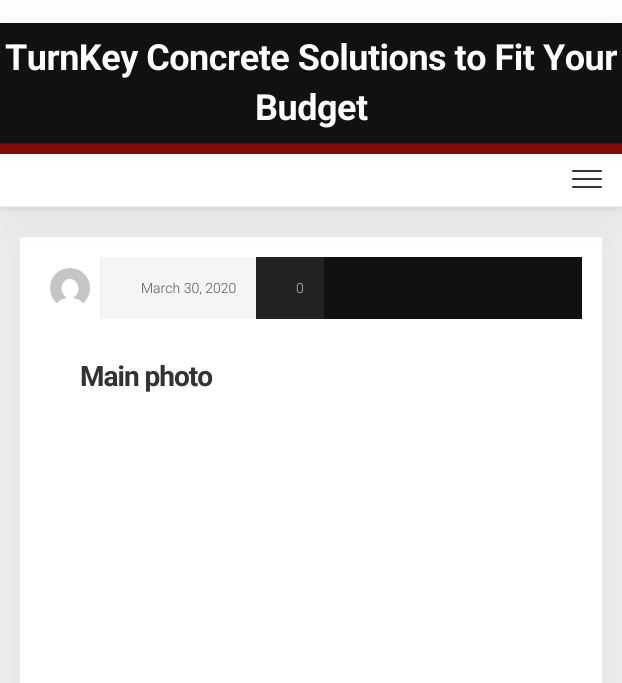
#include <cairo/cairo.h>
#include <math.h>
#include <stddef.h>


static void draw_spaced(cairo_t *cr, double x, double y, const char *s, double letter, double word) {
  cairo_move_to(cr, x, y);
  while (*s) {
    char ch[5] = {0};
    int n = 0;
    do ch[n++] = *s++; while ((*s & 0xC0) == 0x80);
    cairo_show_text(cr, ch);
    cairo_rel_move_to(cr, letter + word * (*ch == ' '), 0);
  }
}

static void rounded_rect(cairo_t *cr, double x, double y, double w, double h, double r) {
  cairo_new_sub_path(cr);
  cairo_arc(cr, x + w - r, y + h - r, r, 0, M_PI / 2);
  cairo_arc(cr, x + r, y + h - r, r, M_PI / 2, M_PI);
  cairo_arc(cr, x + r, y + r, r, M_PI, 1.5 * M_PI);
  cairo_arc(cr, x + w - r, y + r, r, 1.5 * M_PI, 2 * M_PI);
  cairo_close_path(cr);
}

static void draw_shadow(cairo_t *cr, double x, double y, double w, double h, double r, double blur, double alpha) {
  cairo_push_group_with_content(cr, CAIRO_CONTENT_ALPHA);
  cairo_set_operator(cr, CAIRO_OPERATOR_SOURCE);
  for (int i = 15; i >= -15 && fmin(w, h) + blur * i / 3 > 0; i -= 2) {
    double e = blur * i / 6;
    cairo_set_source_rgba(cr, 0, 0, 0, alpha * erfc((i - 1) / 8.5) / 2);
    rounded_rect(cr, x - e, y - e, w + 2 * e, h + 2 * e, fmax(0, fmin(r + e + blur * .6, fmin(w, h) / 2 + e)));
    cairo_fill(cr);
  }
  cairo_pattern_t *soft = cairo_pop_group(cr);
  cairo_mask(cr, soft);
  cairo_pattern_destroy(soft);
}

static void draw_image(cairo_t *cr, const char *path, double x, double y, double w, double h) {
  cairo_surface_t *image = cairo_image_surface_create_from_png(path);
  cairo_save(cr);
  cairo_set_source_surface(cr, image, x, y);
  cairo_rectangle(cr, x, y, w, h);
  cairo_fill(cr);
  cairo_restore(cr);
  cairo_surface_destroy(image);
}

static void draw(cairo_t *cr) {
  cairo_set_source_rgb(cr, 238 / 255.0, 238 / 255.0, 238 / 255.0);
  cairo_paint(cr);
  cairo_set_source_rgb(cr, 1, 1, 1);
  cairo_rectangle(cr, 0, 0, 622, 23);
  cairo_fill(cr);
  cairo_set_source_rgb(cr, 0, 0, 0);
  draw_shadow(cr, 0, 26, 622, 184, 0, 1.5, 0.05);
  draw_shadow(cr, 20, 247, 582, 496, 0, 20, 0.05);
  cairo_set_source_rgb(cr, 1, 1, 1);
  cairo_rectangle(cr, 20, 237, 582, 446);
  cairo_fill(cr);
  cairo_set_source_rgb(cr, 17 / 255.0, 17 / 255.0, 17 / 255.0);
  cairo_rectangle(cr, 324, 257, 258, 62);
  cairo_fill(cr);
  draw_image(cr, "images/1.png", 50, 268, 40, 36);
  cairo_set_source_rgb(cr, 245 / 255.0, 245 / 255.0, 245 / 255.0);
  cairo_rectangle(cr, 101, 257, 155, 62);
  cairo_fill(cr);
  cairo_set_source_rgb(cr, 238 / 255.0, 238 / 255.0, 238 / 255.0);
  cairo_rectangle(cr, 100, 257, 1, 62);
  cairo_fill(cr);
  cairo_set_source_rgb(cr, 34 / 255.0, 34 / 255.0, 34 / 255.0);
  cairo_rectangle(cr, 256, 257, 68, 62);
  cairo_fill(cr);
  cairo_set_source_rgb(cr, 0, 0, 0);
  draw_shadow(cr, 0, 33, 622, 184, 0, 20, 0.05);
  cairo_set_source_rgb(cr, 1, 1, 1);
  cairo_rectangle(cr, 0, 154, 622, 52);
  cairo_fill(cr);
  cairo_set_source_rgb(cr, 17 / 255.0, 17 / 255.0, 17 / 255.0);
  cairo_rectangle(cr, 0, 23, 622, 120);
  cairo_fill(cr);
  cairo_set_source_rgb(cr, 34 / 255.0, 34 / 255.0, 34 / 255.0);
  cairo_rectangle(cr, 0, 143, 622, 1);
  cairo_fill(cr);
  cairo_set_source_rgb(cr, 130 / 255.0, 12 / 255.0, 12 / 255.0);
  cairo_rectangle(cr, 0, 144, 622, 10);
  cairo_fill(cr);
  cairo_set_source_rgb(cr, 238 / 255.0, 238 / 255.0, 238 / 255.0);
  cairo_rectangle(cr, 0, 206, 622, 1);
  cairo_fill(cr);
  cairo_set_source_rgb(cr, 51 / 255.0, 51 / 255.0, 51 / 255.0);
  rounded_rect(cr, 572, 170, 30, 2, 1);
  cairo_fill(cr);
  rounded_rect(cr, 572, 178, 30, 2, 1);
  cairo_fill(cr);
  rounded_rect(cr, 572, 186, 30, 2, 1);
  cairo_fill(cr);
  cairo_select_font_face(cr, "Roboto", CAIRO_FONT_SLANT_NORMAL, CAIRO_FONT_WEIGHT_BOLD);
  cairo_set_font_size(cr, 36);
  cairo_set_source_rgb(cr, 1, 1, 1);
  draw_spaced(cr, 5, 70, "TurnKey Concrete Solutions to Fit Your", -0.5, 0);
  draw_spaced(cr, 255, 120, "Budget", -0.5, 0);
  cairo_select_font_face(cr, "Roboto Light", CAIRO_FONT_SLANT_NORMAL, CAIRO_FONT_WEIGHT_NORMAL);
  cairo_set_font_size(cr, 14);
  cairo_set_source_rgb(cr, 85 / 255.0, 85 / 255.0, 85 / 255.0);
  cairo_move_to(cr, 141, 293);
  cairo_show_text(cr, "March 30, 2020");
  cairo_set_source_rgb(cr, 189 / 255.0, 189 / 255.0, 189 / 255.0);
  cairo_move_to(cr, 296, 293);
  cairo_show_text(cr, "0");
  cairo_select_font_face(cr, "Roboto", CAIRO_FONT_SLANT_NORMAL, CAIRO_FONT_WEIGHT_BOLD);
  cairo_set_font_size(cr, 28);
  cairo_set_source_rgb(cr, 51 / 255.0, 51 / 255.0, 51 / 255.0);
  draw_spaced(cr, 80, 386, "Main photo", -1, 0);
}

int main(void) {
  cairo_surface_t *surface = cairo_image_surface_create(CAIRO_FORMAT_RGB24, 622, 683);
  cairo_t *cr = cairo_create(surface);
  cairo_font_options_t *options = cairo_font_options_create();
  cairo_font_options_set_hint_metrics(options, CAIRO_HINT_METRICS_OFF);
  cairo_font_options_set_hint_style(options, CAIRO_HINT_STYLE_NONE);
  cairo_set_font_options(cr, options);
  cairo_set_miter_limit(cr, 4);
  draw(cr);
  cairo_surface_write_to_png(surface, "out.png");
  cairo_font_options_destroy(options);
  cairo_destroy(cr);
  cairo_surface_destroy(surface);
  return 0;
}
